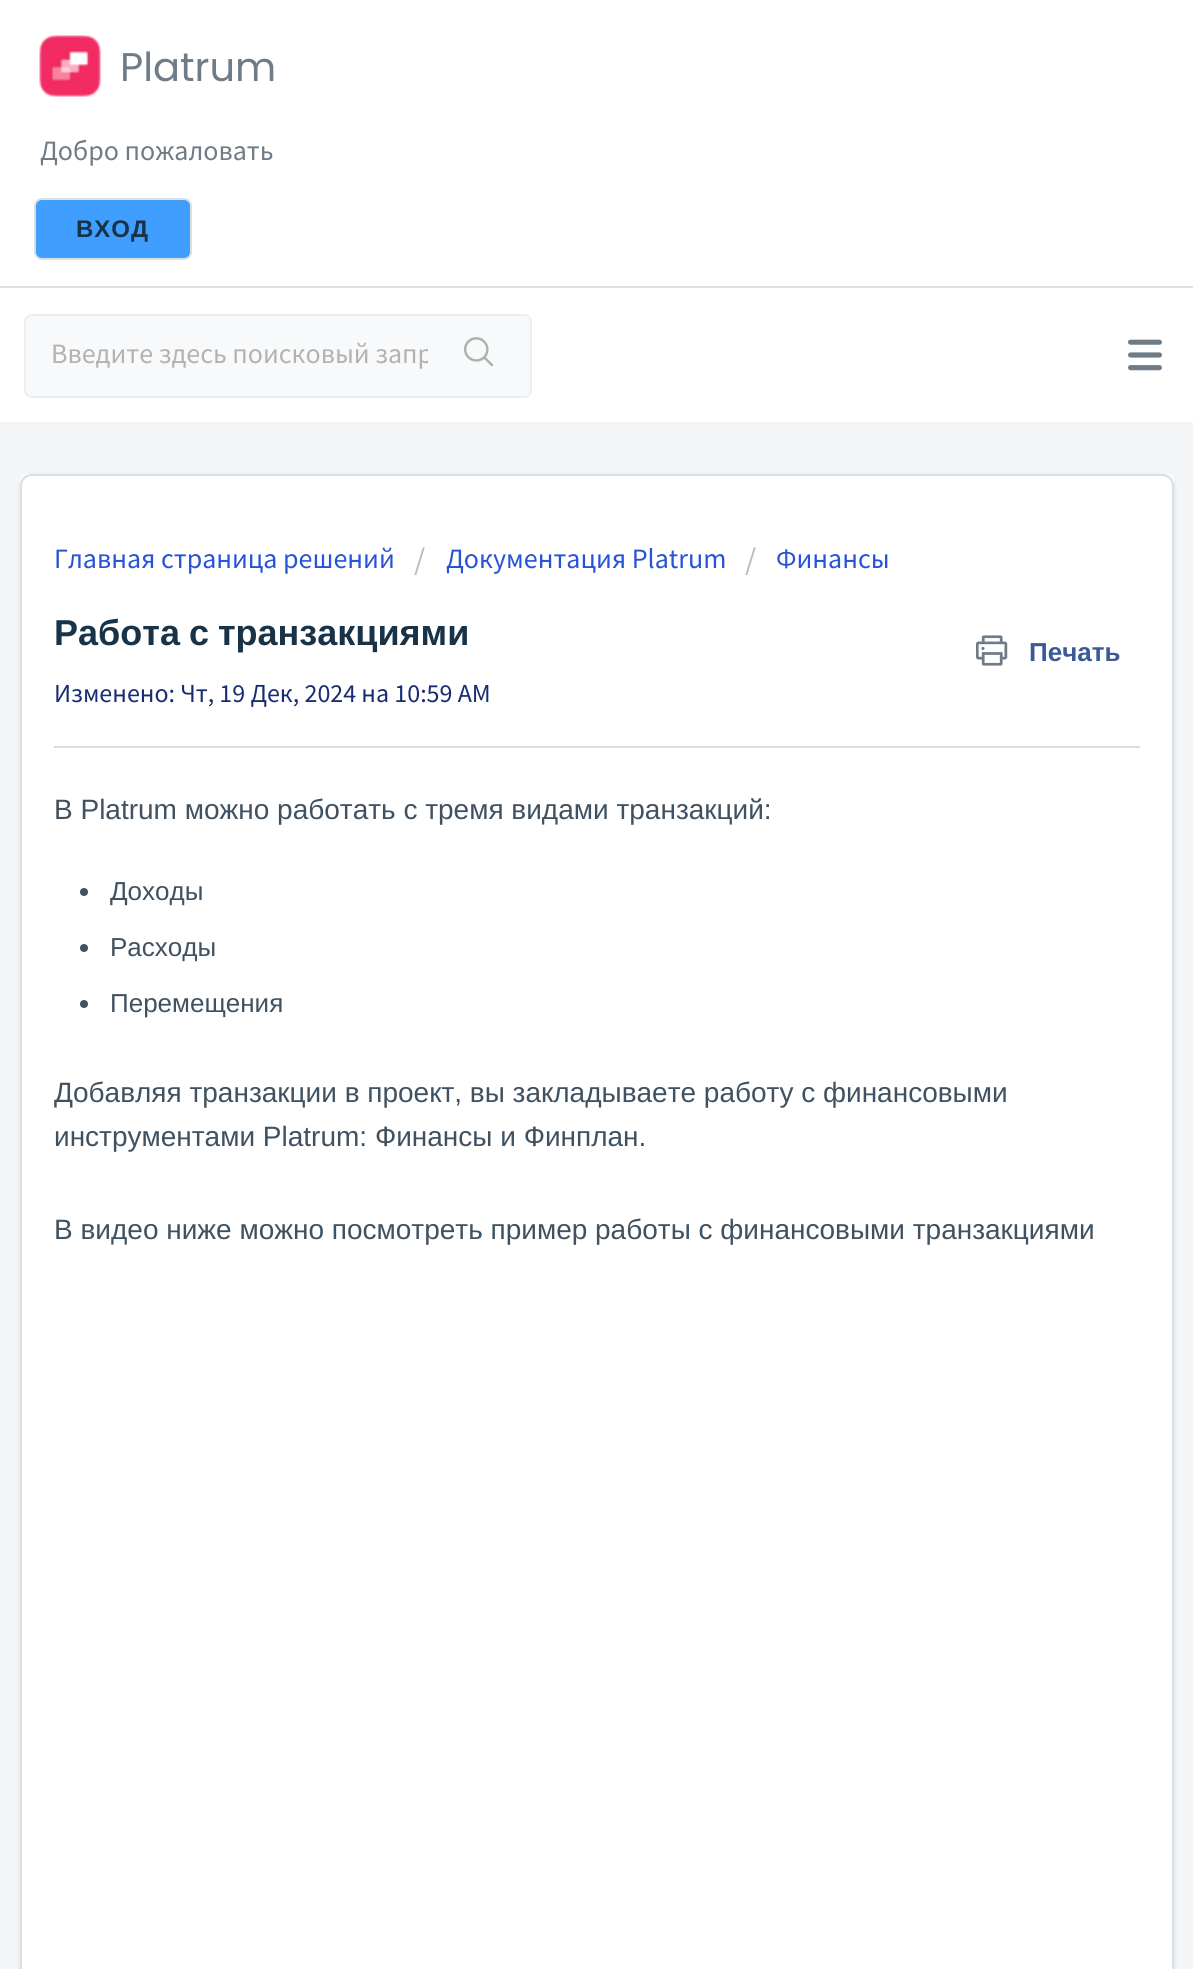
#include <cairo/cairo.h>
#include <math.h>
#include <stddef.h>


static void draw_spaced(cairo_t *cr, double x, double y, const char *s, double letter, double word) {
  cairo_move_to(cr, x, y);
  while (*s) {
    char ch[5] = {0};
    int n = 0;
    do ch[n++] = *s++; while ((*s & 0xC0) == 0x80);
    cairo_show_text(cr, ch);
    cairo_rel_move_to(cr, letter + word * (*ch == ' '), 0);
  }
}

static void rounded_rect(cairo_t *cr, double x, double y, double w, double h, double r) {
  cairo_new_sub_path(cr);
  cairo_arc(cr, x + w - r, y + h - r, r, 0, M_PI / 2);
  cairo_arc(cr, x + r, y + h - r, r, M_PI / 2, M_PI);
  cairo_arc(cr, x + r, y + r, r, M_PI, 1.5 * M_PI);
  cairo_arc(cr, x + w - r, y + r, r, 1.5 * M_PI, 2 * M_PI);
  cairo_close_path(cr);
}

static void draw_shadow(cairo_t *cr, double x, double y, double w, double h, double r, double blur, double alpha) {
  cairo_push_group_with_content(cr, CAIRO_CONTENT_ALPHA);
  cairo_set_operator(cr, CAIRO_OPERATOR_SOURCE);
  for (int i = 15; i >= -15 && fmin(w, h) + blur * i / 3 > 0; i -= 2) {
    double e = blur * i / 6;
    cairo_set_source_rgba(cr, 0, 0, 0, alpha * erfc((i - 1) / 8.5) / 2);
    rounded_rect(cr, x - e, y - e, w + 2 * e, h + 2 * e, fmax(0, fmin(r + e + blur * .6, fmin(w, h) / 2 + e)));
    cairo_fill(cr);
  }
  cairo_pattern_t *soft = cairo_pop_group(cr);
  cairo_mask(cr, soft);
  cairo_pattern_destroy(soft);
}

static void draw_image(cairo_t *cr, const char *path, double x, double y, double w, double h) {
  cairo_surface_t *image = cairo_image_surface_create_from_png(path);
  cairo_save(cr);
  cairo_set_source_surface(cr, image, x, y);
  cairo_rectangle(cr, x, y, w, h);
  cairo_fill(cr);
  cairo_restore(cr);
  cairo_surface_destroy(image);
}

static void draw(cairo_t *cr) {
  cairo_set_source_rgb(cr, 243 / 255.0, 245 / 255.0, 247 / 255.0);
  cairo_paint(cr);
  cairo_set_source_rgb(cr, 1, 1, 1);
  cairo_rectangle(cr, 0, 0, 1193, 286);
  cairo_fill(cr);
  cairo_set_source_rgb(cr, 218 / 255.0, 223 / 255.0, 227 / 255.0);
  cairo_rectangle(cr, 0, 286, 1193, 2);
  cairo_fill(cr);
  draw_image(cr, "images/1.png", 39, 35, 62, 62);
  cairo_set_source_rgb(cr, 64 / 255.0, 158 / 255.0, 1);
  rounded_rect(cr, 35, 199, 156, 60, 7);
  cairo_fill_preserve(cr);
  cairo_set_source_rgb(cr, 218 / 255.0, 223 / 255.0, 227 / 255.0);
  cairo_stroke(cr);
  cairo_set_source_rgb(cr, 1, 1, 1);
  cairo_rectangle(cr, 0, 288, 1193, 134);
  cairo_fill(cr);
  draw_image(cr, "images/2.png", 1128, 339, 34, 32);
  cairo_set_source_rgb(cr, 248 / 255.0, 249 / 255.0, 250 / 255.0);
  rounded_rect(cr, 25, 315, 506, 82, 7);
  cairo_fill_preserve(cr);
  cairo_set_source_rgb(cr, 235 / 255.0, 238 / 255.0, 240 / 255.0);
  cairo_stroke(cr);
  cairo_set_source_rgb(cr, 248 / 255.0, 249 / 255.0, 250 / 255.0);
  cairo_rectangle(cr, 20, 474, 1154, 12);
  cairo_fill(cr);
  cairo_set_source_rgb(cr, 63 / 255.0, 63 / 255.0, 68 / 255.0);
  draw_shadow(cr, 20, 476, 1154, 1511, 12, 2, 0.15);
  cairo_set_source_rgb(cr, 1, 1, 1);
  rounded_rect(cr, 21, 475, 1152, 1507, 11);
  cairo_fill_preserve(cr);
  cairo_set_source_rgb(cr, 218 / 255.0, 223 / 255.0, 227 / 255.0);
  cairo_stroke(cr);
  draw_image(cr, "images/4.png", 976, 635, 32, 31);
  cairo_set_source_rgb(cr, 220 / 255.0, 220 / 255.0, 220 / 255.0);
  cairo_rectangle(cr, 54, 746, 1086, 2);
  cairo_fill(cr);
  cairo_set_source_rgb(cr, 64 / 255.0, 82 / 255.0, 97 / 255.0);
  cairo_arc(cr, 84, 892, 4, 0, 2 * M_PI);
  cairo_fill(cr);
  cairo_arc(cr, 84, 948, 4, 0, 2 * M_PI);
  cairo_fill(cr);
  cairo_arc(cr, 84, 1004, 4, 0, 2 * M_PI);
  cairo_fill(cr);
  cairo_select_font_face(cr, "Poppins", CAIRO_FONT_SLANT_NORMAL, CAIRO_FONT_WEIGHT_NORMAL);
  cairo_set_font_size(cr, 40);
  cairo_set_source_rgb(cr, 111 / 255.0, 124 / 255.0, 135 / 255.0);
  cairo_move_to(cr, 120, 81);
  cairo_show_text(cr, "Platrum");
  cairo_select_font_face(cr, "Source Sans Pro", CAIRO_FONT_SLANT_NORMAL, CAIRO_FONT_WEIGHT_NORMAL);
  cairo_set_font_size(cr, 28);
  cairo_move_to(cr, 40, 160);
  cairo_show_text(cr, "Добро пожаловать");
  cairo_select_font_face(cr, "Liberation Sans", CAIRO_FONT_SLANT_NORMAL, CAIRO_FONT_WEIGHT_BOLD);
  cairo_set_font_size(cr, 24);
  cairo_set_source_rgb(cr, 24 / 255.0, 50 / 255.0, 71 / 255.0);
  draw_spaced(cr, 76, 237, "ВХОД", 1, 0);
  cairo_select_font_face(cr, "Source Sans Pro", CAIRO_FONT_SLANT_NORMAL, CAIRO_FONT_WEIGHT_NORMAL);
  cairo_set_font_size(cr, 28);
  cairo_set_source_rgb(cr, 178 / 255.0, 178 / 255.0, 178 / 255.0);
  cairo_move_to(cr, 51, 363);
  cairo_show_text(cr, "Введите здесь поисковый запр");
  cairo_set_source_rgb(cr, 248 / 255.0, 249 / 255.0, 250 / 255.0);
  rounded_rect(cr, 428, 316, 102, 80, 4);
  cairo_fill(cr);
  draw_image(cr, "images/3.png", 464, 337, 30, 30);
  cairo_set_source_rgb(cr, 39 / 255.0, 83 / 255.0, 215 / 255.0);
  cairo_move_to(cr, 54, 568);
  cairo_show_text(cr, "Главная страница решений");
  cairo_set_font_size(cr, 32);
  cairo_set_source_rgb(cr, 187 / 255.0, 187 / 255.0, 187 / 255.0);
  cairo_move_to(cr, 414, 570);
  cairo_show_text(cr, "/");
  cairo_set_font_size(cr, 28);
  cairo_set_source_rgb(cr, 39 / 255.0, 83 / 255.0, 215 / 255.0);
  cairo_move_to(cr, 446, 568);
  cairo_show_text(cr, "Документация Platrum");
  cairo_set_font_size(cr, 32);
  cairo_set_source_rgb(cr, 187 / 255.0, 187 / 255.0, 187 / 255.0);
  cairo_move_to(cr, 745, 570);
  cairo_show_text(cr, "/");
  cairo_set_font_size(cr, 28);
  cairo_set_source_rgb(cr, 39 / 255.0, 83 / 255.0, 215 / 255.0);
  cairo_move_to(cr, 776, 568);
  cairo_show_text(cr, "Финансы");
  cairo_select_font_face(cr, "Liberation Sans", CAIRO_FONT_SLANT_NORMAL, CAIRO_FONT_WEIGHT_BOLD);
  cairo_set_font_size(cr, 36);
  cairo_set_source_rgb(cr, 24 / 255.0, 50 / 255.0, 71 / 255.0);
  draw_spaced(cr, 54, 645, "Работа с транзакциями", 0, -1);
  cairo_set_font_size(cr, 26);
  cairo_set_source_rgb(cr, 59 / 255.0, 89 / 255.0, 152 / 255.0);
  cairo_move_to(cr, 1029, 661);
  cairo_show_text(cr, "Печать");
  cairo_select_font_face(cr, "Source Sans Pro", CAIRO_FONT_SLANT_NORMAL, CAIRO_FONT_WEIGHT_NORMAL);
  cairo_set_source_rgb(cr, 23 / 255.0, 44 / 255.0, 115 / 255.0);
  cairo_move_to(cr, 54, 702);
  cairo_show_text(cr, "Изменено: Чт, 19 Дек, 2024 на 10:59 AM");
  cairo_select_font_face(cr, "Liberation Sans", CAIRO_FONT_SLANT_NORMAL, CAIRO_FONT_WEIGHT_NORMAL);
  cairo_set_font_size(cr, 28);
  cairo_set_source_rgb(cr, 64 / 255.0, 82 / 255.0, 97 / 255.0);
  cairo_move_to(cr, 54, 819);
  cairo_show_text(cr, "В Platrum можно работать с тремя видами транзакций:");
  cairo_set_font_size(cr, 26);
  cairo_move_to(cr, 110, 900);
  cairo_show_text(cr, "Доходы");
  cairo_move_to(cr, 110, 956);
  cairo_show_text(cr, "Расходы");
  cairo_move_to(cr, 110, 1012);
  cairo_show_text(cr, "Перемещения");
  cairo_set_font_size(cr, 28);
  cairo_move_to(cr, 54, 1102);
  cairo_show_text(cr, "Добавляя транзакции в проект, вы закладываете работу с финансовыми");
  cairo_move_to(cr, 54, 1146);
  cairo_show_text(cr, "инструментами Platrum: Финансы и Финплан.");
  cairo_move_to(cr, 54, 1239);
  cairo_show_text(cr, "В видео ниже можно посмотреть пример работы с финансовыми транзакциями");
}

int main(void) {
  cairo_surface_t *surface = cairo_image_surface_create(CAIRO_FORMAT_RGB24, 1193, 1969);
  cairo_t *cr = cairo_create(surface);
  cairo_font_options_t *options = cairo_font_options_create();
  cairo_font_options_set_hint_metrics(options, CAIRO_HINT_METRICS_OFF);
  cairo_font_options_set_hint_style(options, CAIRO_HINT_STYLE_NONE);
  cairo_set_font_options(cr, options);
  cairo_set_miter_limit(cr, 4);
  draw(cr);
  cairo_surface_write_to_png(surface, "out.png");
  cairo_font_options_destroy(options);
  cairo_destroy(cr);
  cairo_surface_destroy(surface);
  return 0;
}
